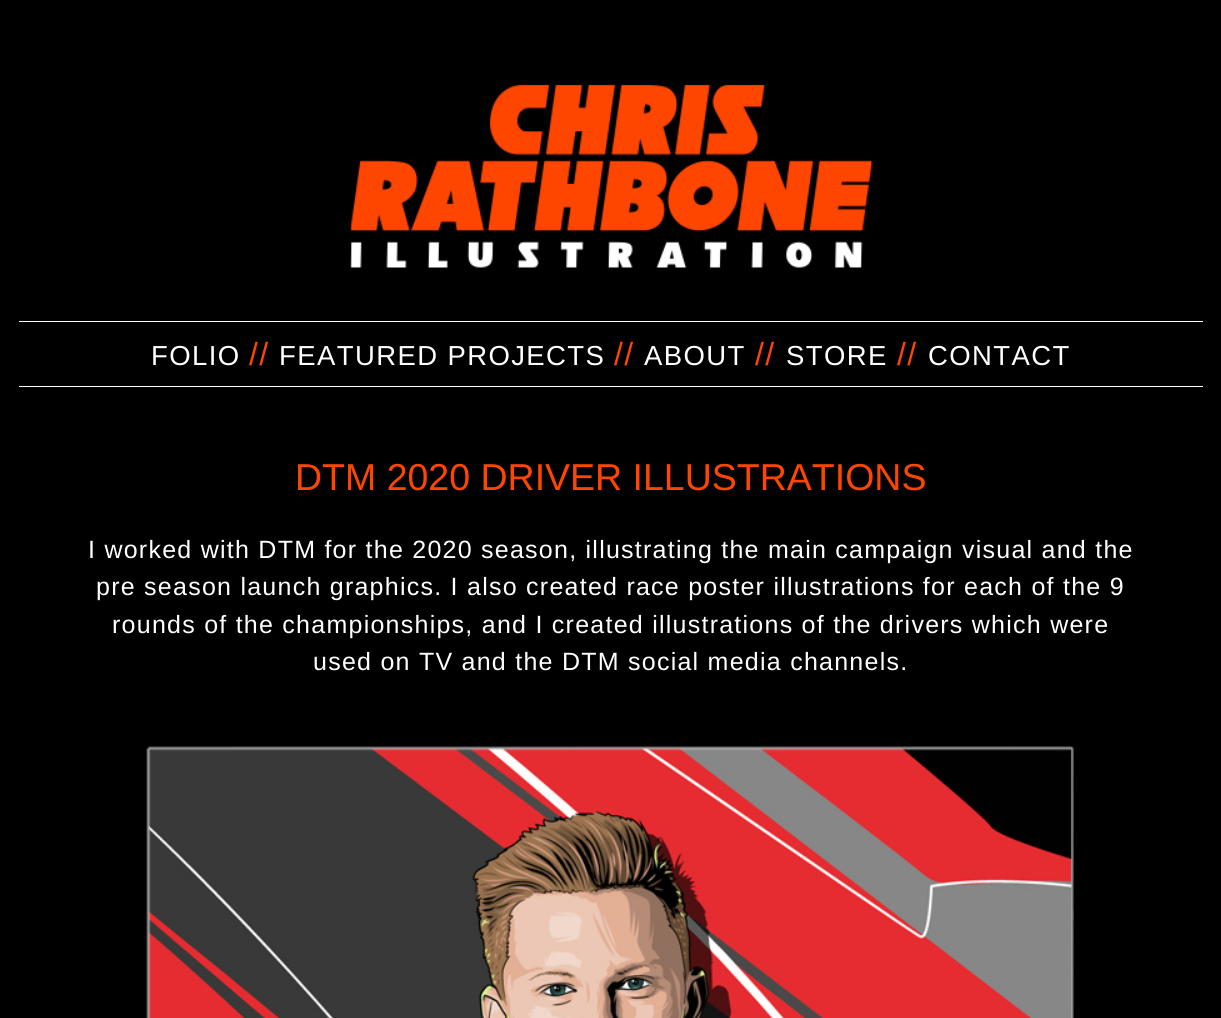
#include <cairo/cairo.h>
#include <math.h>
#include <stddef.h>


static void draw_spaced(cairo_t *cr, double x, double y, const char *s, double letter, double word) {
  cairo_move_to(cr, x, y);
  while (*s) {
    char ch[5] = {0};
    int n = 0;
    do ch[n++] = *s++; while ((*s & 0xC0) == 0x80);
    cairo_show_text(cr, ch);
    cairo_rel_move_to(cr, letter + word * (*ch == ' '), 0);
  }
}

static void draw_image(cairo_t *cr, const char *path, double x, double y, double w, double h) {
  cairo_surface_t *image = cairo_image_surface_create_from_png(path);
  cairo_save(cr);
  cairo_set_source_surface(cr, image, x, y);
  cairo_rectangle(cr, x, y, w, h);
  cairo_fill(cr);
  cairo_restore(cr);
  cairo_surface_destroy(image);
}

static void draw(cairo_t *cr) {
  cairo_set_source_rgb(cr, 0, 0, 0);
  cairo_paint(cr);
  draw_image(cr, "images/1.png", 350, 84, 523, 184);
  cairo_set_source_rgb(cr, 1, 1, 1);
  cairo_rectangle(cr, 19, 321, 1184, 1);
  cairo_fill(cr);
  cairo_rectangle(cr, 19, 386, 1184, 1);
  cairo_fill(cr);
  draw_image(cr, "images/2.png", 146, 746, 928, 272);
  cairo_select_font_face(cr, "Liberation Sans", CAIRO_FONT_SLANT_NORMAL, CAIRO_FONT_WEIGHT_NORMAL);
  cairo_set_font_size(cr, 27.5);
  draw_spaced(cr, 151, 365, "FOLIO", 1.4, 0);
  cairo_set_font_size(cr, 32);
  cairo_set_source_rgb(cr, 1, 70 / 255.0, 0);
  draw_spaced(cr, 249, 365, "//", 1.4, 0);
  cairo_set_font_size(cr, 27.5);
  cairo_set_source_rgb(cr, 1, 1, 1);
  draw_spaced(cr, 279, 365, "FEATURED PROJECTS", 1.4, 0);
  cairo_set_font_size(cr, 32);
  cairo_set_source_rgb(cr, 1, 70 / 255.0, 0);
  draw_spaced(cr, 614, 365, "//", 1.4, 0);
  cairo_set_font_size(cr, 27.5);
  cairo_set_source_rgb(cr, 1, 1, 1);
  draw_spaced(cr, 644, 365, "ABOUT", 1.4, 0);
  cairo_set_font_size(cr, 32);
  cairo_set_source_rgb(cr, 1, 70 / 255.0, 0);
  draw_spaced(cr, 755, 365, "//", 1.4, 0);
  cairo_set_font_size(cr, 27.5);
  cairo_set_source_rgb(cr, 1, 1, 1);
  draw_spaced(cr, 786, 365, "STORE", 1.4, 0);
  cairo_set_font_size(cr, 32);
  cairo_set_source_rgb(cr, 1, 70 / 255.0, 0);
  draw_spaced(cr, 897, 365, "//", 1.4, 0);
  cairo_set_font_size(cr, 27.5);
  cairo_set_source_rgb(cr, 1, 1, 1);
  draw_spaced(cr, 928, 365, "CONTACT", 1.4, 0);
  cairo_set_font_size(cr, 37.5);
  cairo_set_source_rgb(cr, 1, 70 / 255.0, 0);
  cairo_move_to(cr, 295, 490);
  cairo_show_text(cr, "DTM 2020 DRIVER ILLUSTRATIONS");
  cairo_set_font_size(cr, 25);
  cairo_set_source_rgb(cr, 1, 1, 1);
  draw_spaced(cr, 88, 558, "I worked with DTM for the 2020 season, illustrating the main campaign visual and the", 1.25, 0);
  draw_spaced(cr, 96, 595, "pre season launch graphics. I also created race poster illustrations for each of the 9", 1.25, 0);
  draw_spaced(cr, 112, 633, "rounds of the championships, and I created illustrations of the drivers which were", 1.25, 0);
  draw_spaced(cr, 313, 670, "used on TV and the DTM social media channels.", 1.25, 0);
}

int main(void) {
  cairo_surface_t *surface = cairo_image_surface_create(CAIRO_FORMAT_RGB24, 1221, 1018);
  cairo_t *cr = cairo_create(surface);
  cairo_font_options_t *options = cairo_font_options_create();
  cairo_font_options_set_hint_metrics(options, CAIRO_HINT_METRICS_OFF);
  cairo_font_options_set_hint_style(options, CAIRO_HINT_STYLE_NONE);
  cairo_set_font_options(cr, options);
  cairo_set_miter_limit(cr, 4);
  draw(cr);
  cairo_surface_write_to_png(surface, "out.png");
  cairo_font_options_destroy(options);
  cairo_destroy(cr);
  cairo_surface_destroy(surface);
  return 0;
}
